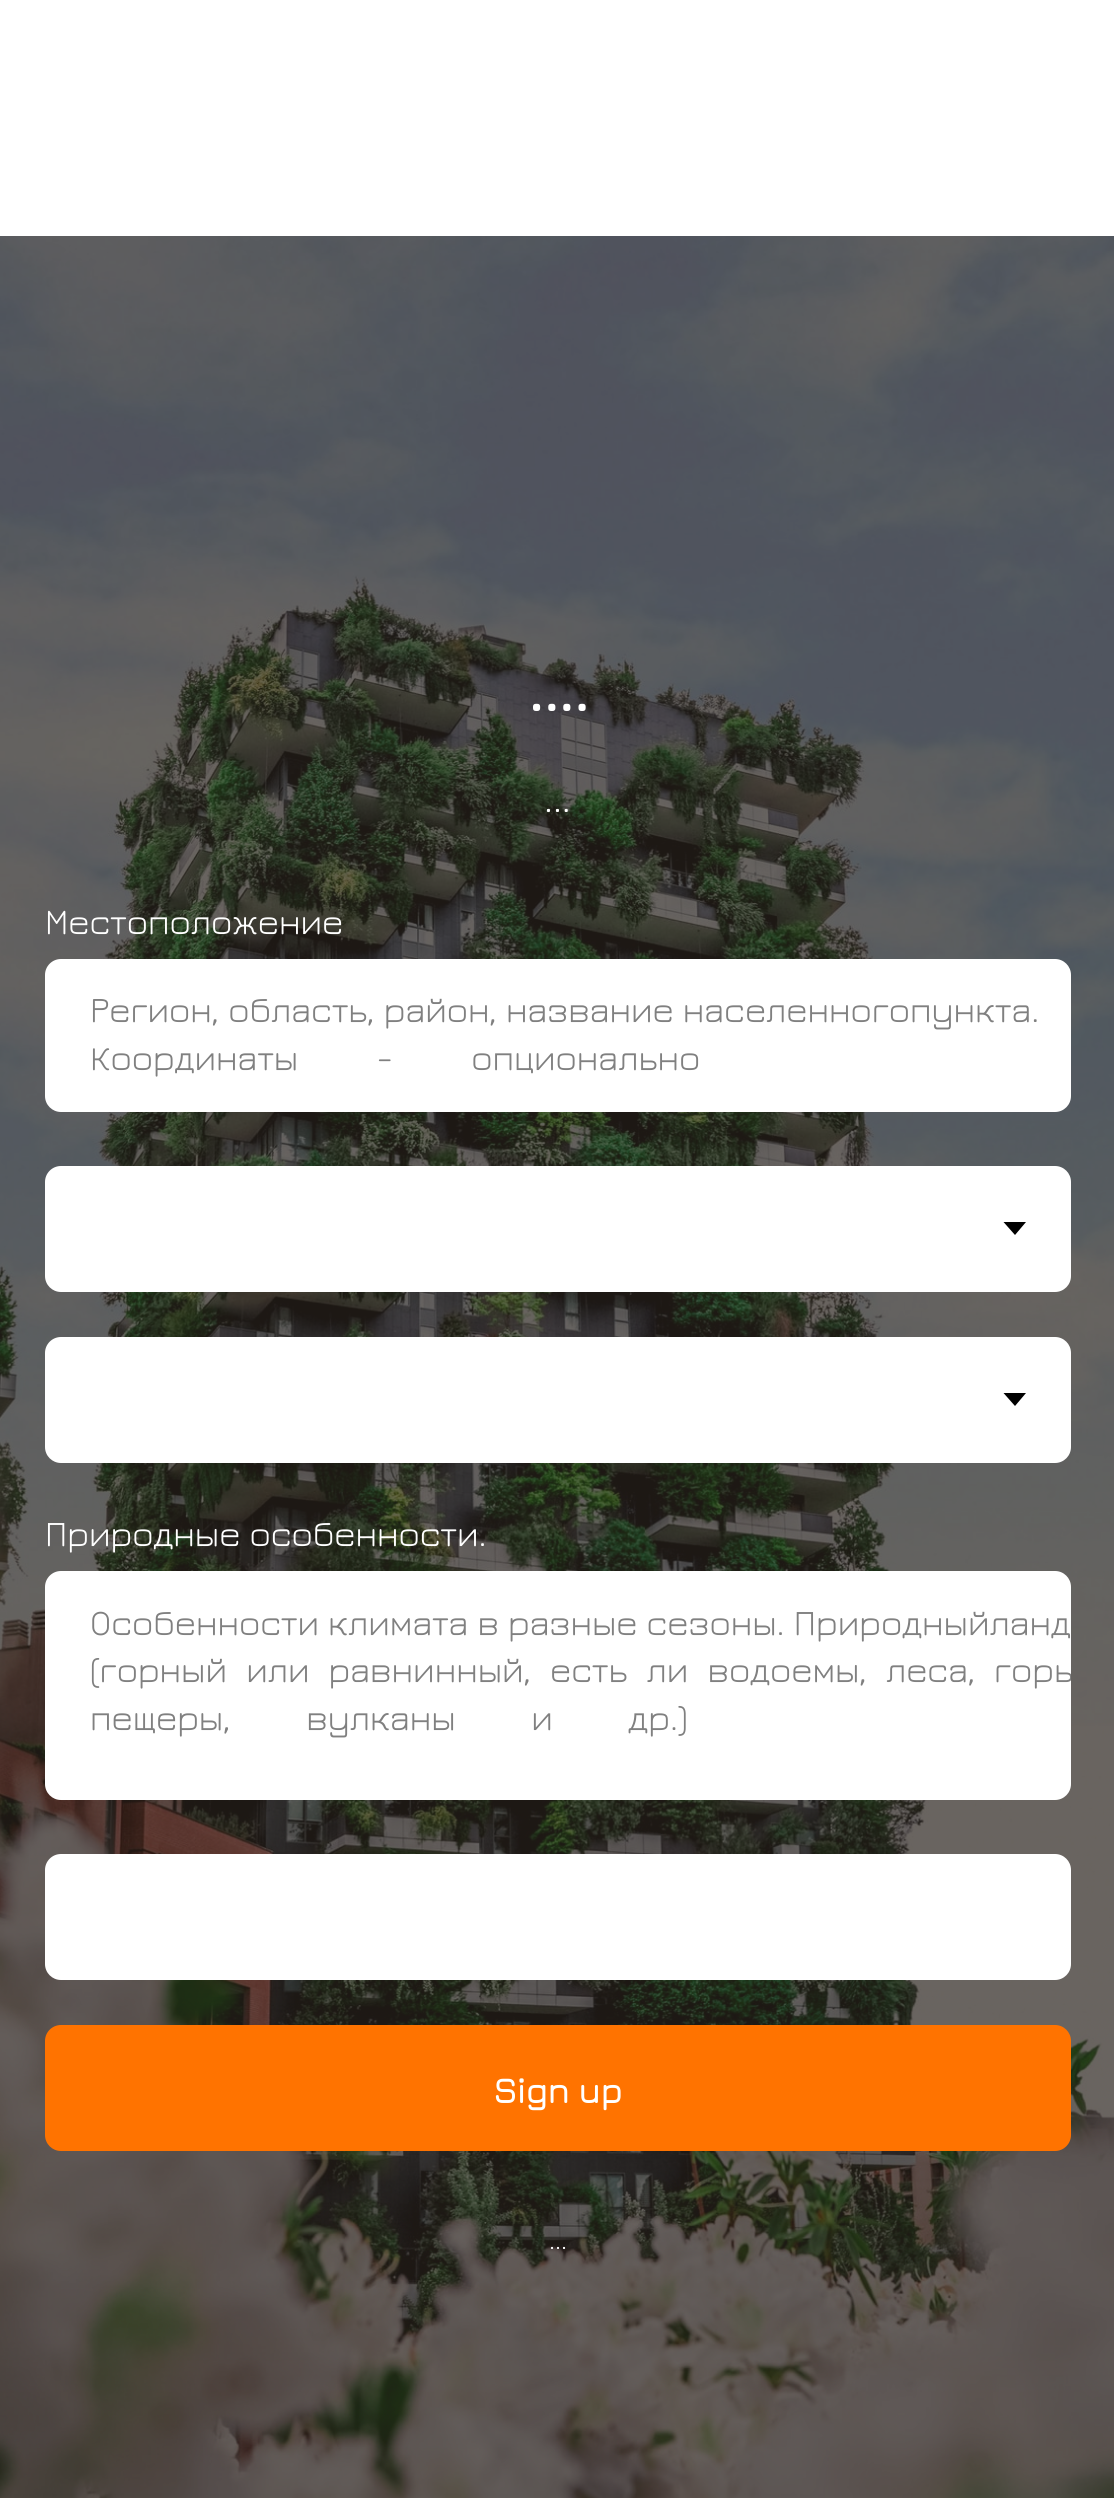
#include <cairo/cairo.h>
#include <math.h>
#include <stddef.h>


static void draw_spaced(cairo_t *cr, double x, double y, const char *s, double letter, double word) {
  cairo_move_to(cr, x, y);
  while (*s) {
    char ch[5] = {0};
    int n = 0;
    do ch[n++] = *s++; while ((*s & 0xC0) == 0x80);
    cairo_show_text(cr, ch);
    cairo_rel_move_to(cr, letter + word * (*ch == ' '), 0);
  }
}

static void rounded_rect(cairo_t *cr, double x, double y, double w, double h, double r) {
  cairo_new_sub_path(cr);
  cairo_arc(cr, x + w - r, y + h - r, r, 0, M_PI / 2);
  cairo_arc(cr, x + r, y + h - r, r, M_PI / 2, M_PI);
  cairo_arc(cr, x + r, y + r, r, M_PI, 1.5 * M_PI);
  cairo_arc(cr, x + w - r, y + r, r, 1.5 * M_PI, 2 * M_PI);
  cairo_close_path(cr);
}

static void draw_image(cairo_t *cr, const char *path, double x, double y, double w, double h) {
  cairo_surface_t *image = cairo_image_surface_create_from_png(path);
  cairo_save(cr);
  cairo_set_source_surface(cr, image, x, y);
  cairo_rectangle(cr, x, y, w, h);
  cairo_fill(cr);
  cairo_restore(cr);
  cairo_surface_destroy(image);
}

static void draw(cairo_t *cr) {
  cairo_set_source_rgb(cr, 1, 1, 1);
  cairo_paint(cr);
  draw_image(cr, "images/1.png", 0, 236, 1114, 2262);
  cairo_set_source_rgb(cr, 1, 1, 1);
  rounded_rect(cr, 45, 959, 1026, 153, 16);
  cairo_fill(cr);
  rounded_rect(cr, 45, 1166, 1026, 126, 16);
  cairo_fill(cr);
  cairo_set_source_rgb(cr, 0, 0, 0);
  cairo_new_path(cr);
  cairo_move_to(cr, 1003.5, 1222);
  cairo_line_to(cr, 1026, 1222);
  cairo_line_to(cr, 1015, 1235);
  cairo_close_path(cr);
  cairo_fill(cr);
  cairo_set_source_rgb(cr, 1, 1, 1);
  rounded_rect(cr, 45, 1337, 1026, 126, 16);
  cairo_fill(cr);
  cairo_set_source_rgb(cr, 0, 0, 0);
  cairo_new_path(cr);
  cairo_move_to(cr, 1003.5, 1393);
  cairo_line_to(cr, 1026, 1393);
  cairo_line_to(cr, 1015, 1406);
  cairo_close_path(cr);
  cairo_fill(cr);
  cairo_set_source_rgb(cr, 1, 1, 1);
  rounded_rect(cr, 45, 1571, 1026, 229, 16);
  cairo_fill(cr);
  rounded_rect(cr, 45, 1854, 1026, 126, 16);
  cairo_fill(cr);
  cairo_set_source_rgb(cr, 1, 115 / 255.0, 0);
  rounded_rect(cr, 45, 2025, 1026, 126, 16);
  cairo_fill(cr);
  cairo_select_font_face(cr, "Jura", CAIRO_FONT_SLANT_NORMAL, CAIRO_FONT_WEIGHT_BOLD);
  cairo_set_font_size(cr, 68);
  cairo_set_source_rgb(cr, 1, 1, 1);
  cairo_move_to(cr, 528, 711);
  cairo_show_text(cr, "....");
  cairo_select_font_face(cr, "Jura Light", CAIRO_FONT_SLANT_NORMAL, CAIRO_FONT_WEIGHT_NORMAL);
  cairo_set_font_size(cr, 40);
  cairo_move_to(cr, 544, 812);
  cairo_show_text(cr, "...");
  cairo_set_font_size(cr, 36);
  cairo_move_to(cr, 45, 934);
  cairo_show_text(cr, "Местоположение");
  cairo_set_source_rgb(cr, 128 / 255.0, 128 / 255.0, 128 / 255.0);
  cairo_move_to(cr, 90, 1022);
  cairo_show_text(cr, "Регион, область, район, название населенногопункта.");
  draw_spaced(cr, 90, 1070, "Координаты - опционально", 0, 69);
  cairo_set_source_rgb(cr, 1, 1, 1);
  cairo_move_to(cr, 45, 1546);
  cairo_show_text(cr, "Природные особенности.");
  cairo_set_source_rgb(cr, 128 / 255.0, 128 / 255.0, 128 / 255.0);
  cairo_move_to(cr, 90, 1635);
  cairo_show_text(cr, "Особенности климата в разные сезоны. Природныйланд");
  draw_spaced(cr, 90, 1682, "(горный или равнинный, есть ли водоемы, леса,", 0, 10);
  cairo_save(cr);
  rounded_rect(cr, 45, 1571, 1026, 229, 16);
  cairo_clip(cr);
  cairo_move_to(cr, 994, 1682);
  cairo_show_text(cr, "горы");
  cairo_restore(cr);
  draw_spaced(cr, 90, 1730, "пещеры, вулканы и др.)", 0, 66.5);
  cairo_select_font_face(cr, "Jura", CAIRO_FONT_SLANT_NORMAL, CAIRO_FONT_WEIGHT_BOLD);
  cairo_set_source_rgb(cr, 1, 1, 1);
  cairo_move_to(cr, 493, 2103);
  cairo_show_text(cr, "Sign up");
  cairo_select_font_face(cr, "Jura Light", CAIRO_FONT_SLANT_NORMAL, CAIRO_FONT_WEIGHT_NORMAL);
  cairo_set_font_size(cr, 27);
  cairo_move_to(cr, 549, 2249);
  cairo_show_text(cr, "...");
}

int main(void) {
  cairo_surface_t *surface = cairo_image_surface_create(CAIRO_FORMAT_RGB24, 1114, 2498);
  cairo_t *cr = cairo_create(surface);
  cairo_font_options_t *options = cairo_font_options_create();
  cairo_font_options_set_hint_metrics(options, CAIRO_HINT_METRICS_OFF);
  cairo_font_options_set_hint_style(options, CAIRO_HINT_STYLE_NONE);
  cairo_set_font_options(cr, options);
  cairo_set_miter_limit(cr, 4);
  draw(cr);
  cairo_surface_write_to_png(surface, "out.png");
  cairo_font_options_destroy(options);
  cairo_destroy(cr);
  cairo_surface_destroy(surface);
  return 0;
}
